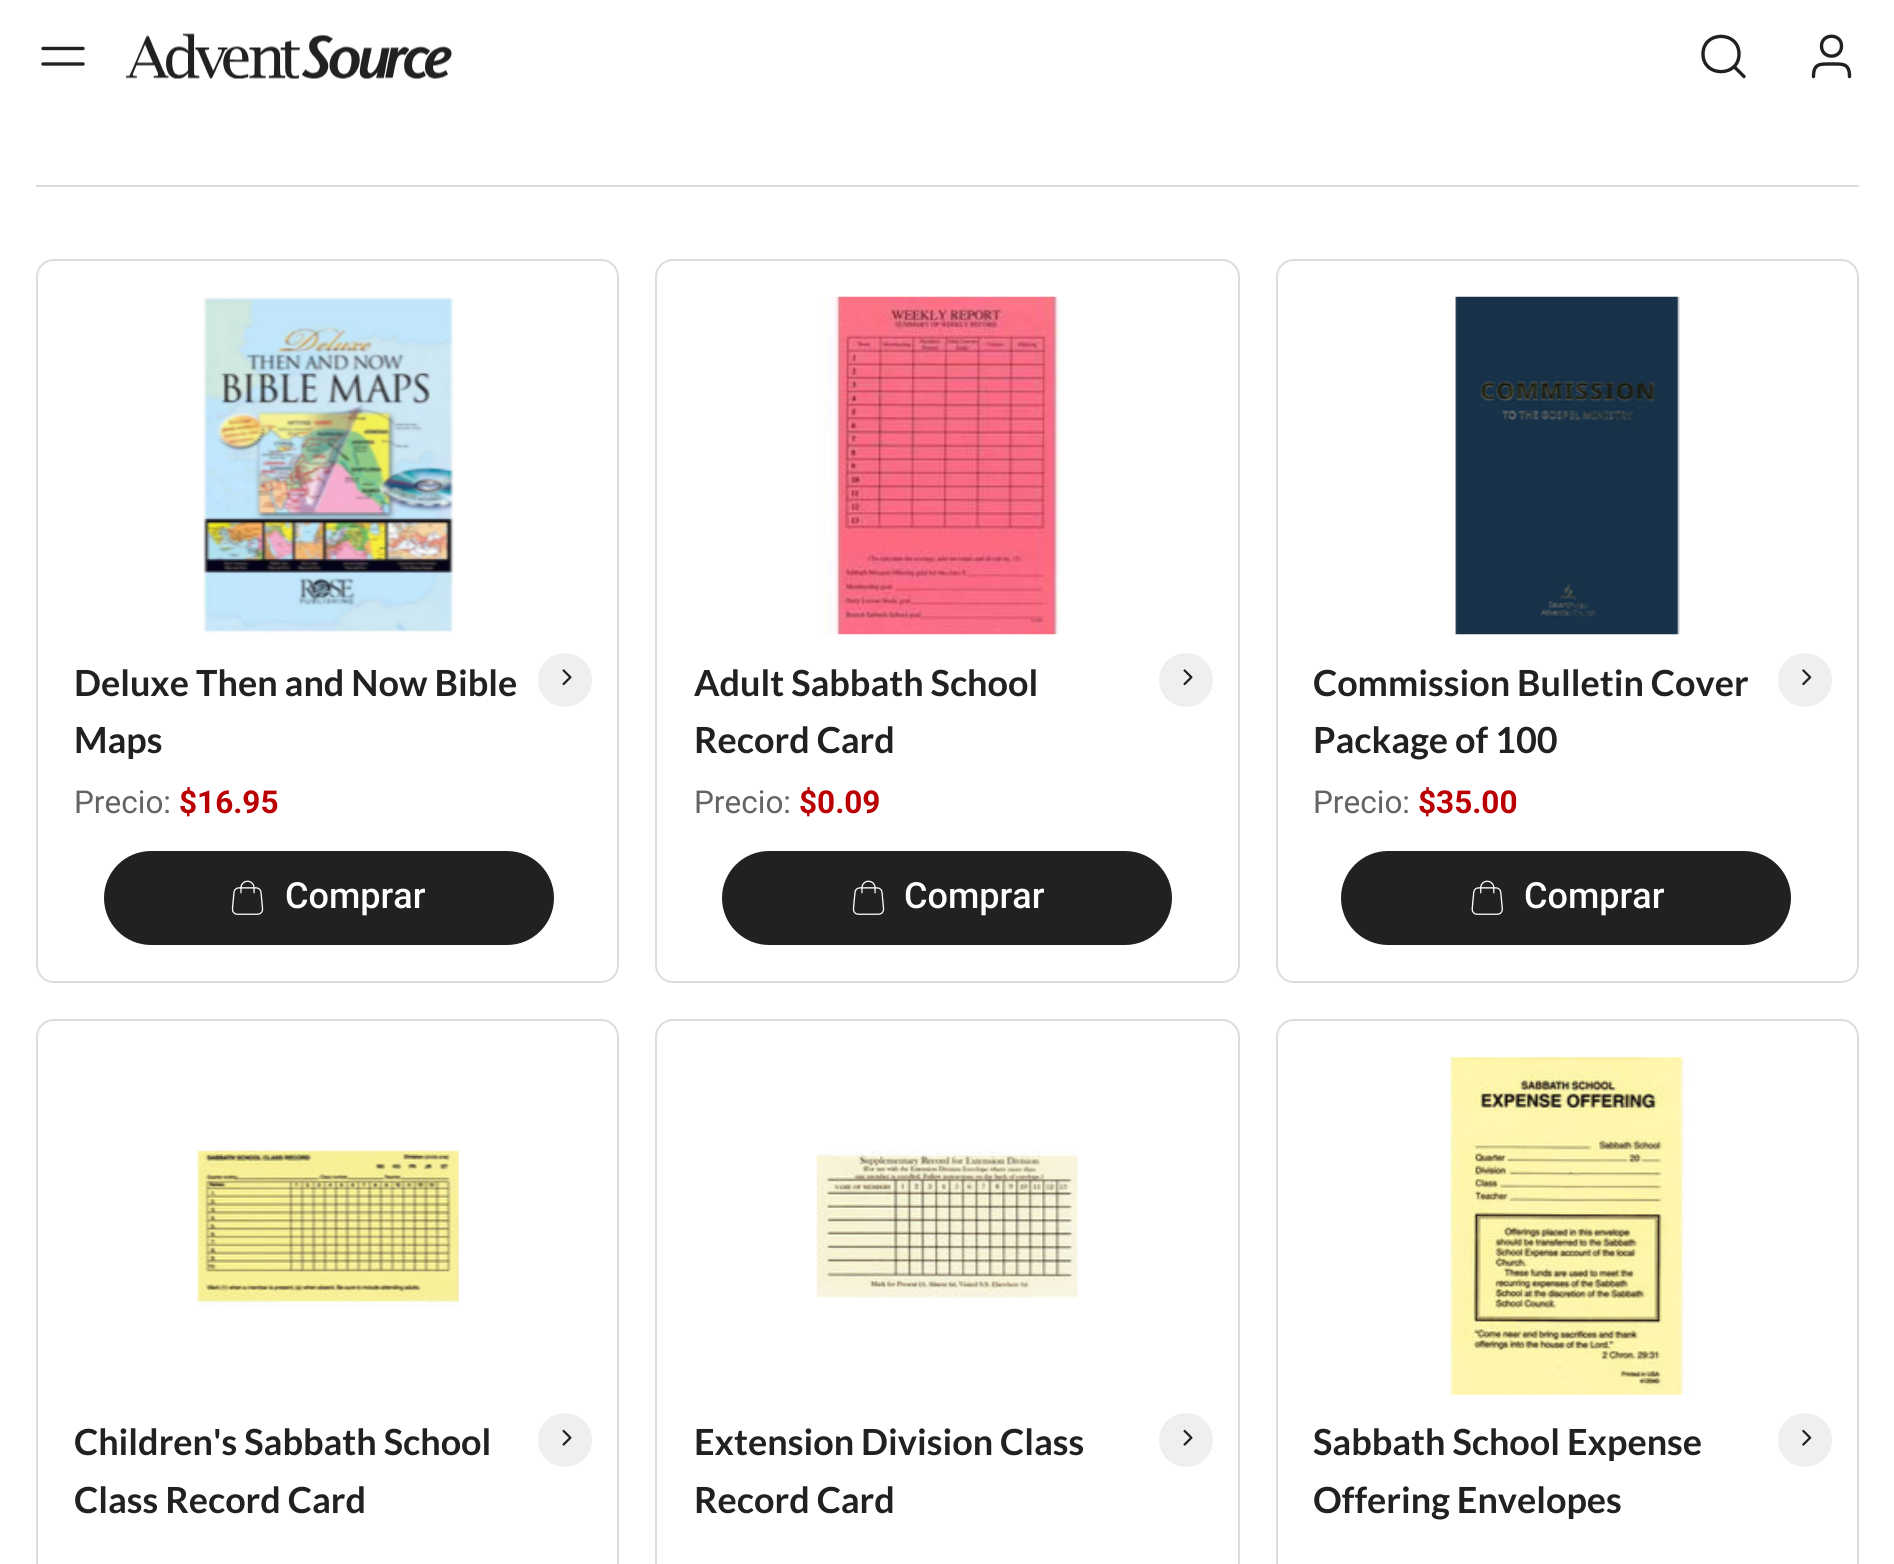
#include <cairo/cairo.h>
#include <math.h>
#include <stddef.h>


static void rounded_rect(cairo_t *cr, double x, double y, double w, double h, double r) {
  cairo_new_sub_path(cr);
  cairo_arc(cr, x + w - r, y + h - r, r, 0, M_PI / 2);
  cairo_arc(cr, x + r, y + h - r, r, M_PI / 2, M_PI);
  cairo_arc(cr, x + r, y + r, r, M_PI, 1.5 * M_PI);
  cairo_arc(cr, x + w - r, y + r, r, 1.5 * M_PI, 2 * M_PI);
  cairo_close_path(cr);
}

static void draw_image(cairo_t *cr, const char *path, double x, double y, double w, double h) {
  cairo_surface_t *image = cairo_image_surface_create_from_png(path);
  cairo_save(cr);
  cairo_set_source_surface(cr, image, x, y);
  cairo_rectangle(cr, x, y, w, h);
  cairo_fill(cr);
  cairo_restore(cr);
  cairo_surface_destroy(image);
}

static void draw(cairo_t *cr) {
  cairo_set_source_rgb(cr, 1, 1, 1);
  cairo_paint(cr);
  cairo_new_path(cr);
  cairo_move_to(cr, 43, 48.5);
  cairo_line_to(cr, 83, 48.5);
  cairo_move_to(cr, 43, 64);
  cairo_line_to(cr, 83, 64);
  cairo_set_source_rgb(cr, 33 / 255.0, 33 / 255.0, 33 / 255.0);
  cairo_set_line_width(cr, 3.4);
  cairo_set_line_cap(cr, CAIRO_LINE_CAP_ROUND);
  cairo_set_line_join(cr, CAIRO_LINE_JOIN_ROUND);
  cairo_stroke(cr);
  draw_image(cr, "images/1.png", 126, 33, 326, 46);
  cairo_new_path(cr);
  cairo_move_to(cr, 1744, 76.5);
  cairo_line_to(cr, 1734, 66.5);
  cairo_move_to(cr, 1739, 54);
  cairo_curve_to(cr, 1739, 77.5, 1703, 77.5, 1703, 54);
  cairo_curve_to(cr, 1703, 30.5, 1739, 30.5, 1739, 54);
  cairo_close_path(cr);
  cairo_stroke(cr);
  cairo_new_path(cr);
  cairo_move_to(cr, 1849.5, 76.5);
  cairo_curve_to(cr, 1849.5, 63, 1842.5, 64, 1831.5, 64);
  cairo_curve_to(cr, 1820.5, 64, 1813.5, 63, 1813.5, 76.5);
  cairo_move_to(cr, 1841.5, 46);
  cairo_curve_to(cr, 1841.5, 59.5, 1821.5, 59.5, 1821.5, 46);
  cairo_curve_to(cr, 1821.5, 33, 1841.5, 33, 1841.5, 46);
  cairo_close_path(cr);
  cairo_stroke(cr);
  cairo_set_source_rgb(cr, 220 / 255.0, 221 / 255.0, 223 / 255.0);
  cairo_rectangle(cr, 36, 185, 1823, 2);
  cairo_fill(cr);
  rounded_rect(cr, 37, 260, 581, 722, 17);
  cairo_set_line_width(cr, 2);
  cairo_set_line_cap(cr, CAIRO_LINE_CAP_BUTT);
  cairo_set_line_join(cr, CAIRO_LINE_JOIN_MITER);
  cairo_stroke(cr);
  draw_image(cr, "images/2.png", 203, 297, 251, 336);
  cairo_set_source_rgb(cr, 239 / 255.0, 239 / 255.0, 239 / 255.0);
  cairo_arc(cr, 565, 680, 27, 0, 2 * M_PI);
  cairo_fill(cr);
  draw_image(cr, "images/3.png", 562, 669, 10, 17);
  cairo_set_source_rgb(cr, 33 / 255.0, 33 / 255.0, 33 / 255.0);
  rounded_rect(cr, 104, 851, 450, 94, 47);
  cairo_fill(cr);
  draw_image(cr, "images/4.png", 231, 880, 33, 35);
  rounded_rect(cr, 656, 260, 583, 722, 17);
  cairo_set_source_rgb(cr, 220 / 255.0, 221 / 255.0, 223 / 255.0);
  cairo_stroke(cr);
  draw_image(cr, "images/5.png", 822, 296, 238, 339);
  cairo_set_source_rgb(cr, 239 / 255.0, 239 / 255.0, 239 / 255.0);
  cairo_arc(cr, 1186, 680, 27, 0, 2 * M_PI);
  cairo_fill(cr);
  draw_image(cr, "images/3.png", 1183, 669, 10, 17);
  cairo_set_source_rgb(cr, 33 / 255.0, 33 / 255.0, 33 / 255.0);
  rounded_rect(cr, 722, 851, 450, 94, 47);
  cairo_fill(cr);
  draw_image(cr, "images/4.png", 852, 880, 33, 35);
  rounded_rect(cr, 1277, 260, 581, 722, 17);
  cairo_set_source_rgb(cr, 220 / 255.0, 221 / 255.0, 223 / 255.0);
  cairo_stroke(cr);
  draw_image(cr, "images/6.png", 1455, 296, 225, 339);
  cairo_set_source_rgb(cr, 239 / 255.0, 239 / 255.0, 239 / 255.0);
  cairo_arc(cr, 1805, 680, 27, 0, 2 * M_PI);
  cairo_fill(cr);
  draw_image(cr, "images/7.png", 1802, 669, 10, 17);
  cairo_set_source_rgb(cr, 33 / 255.0, 33 / 255.0, 33 / 255.0);
  rounded_rect(cr, 1341, 851, 450, 94, 47);
  cairo_fill(cr);
  draw_image(cr, "images/8.png", 1471, 880, 32, 35);
  rounded_rect(cr, 37, 1020, 581, 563, 17);
  cairo_set_source_rgb(cr, 220 / 255.0, 221 / 255.0, 223 / 255.0);
  cairo_stroke(cr);
  draw_image(cr, "images/9.png", 197, 1149, 262, 158);
  cairo_set_source_rgb(cr, 239 / 255.0, 239 / 255.0, 239 / 255.0);
  cairo_arc(cr, 565, 1440, 27, 0, 2 * M_PI);
  cairo_fill(cr);
  draw_image(cr, "images/10.png", 562, 1429, 10, 17);
  rounded_rect(cr, 656, 1020, 583, 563, 17);
  cairo_set_source_rgb(cr, 220 / 255.0, 221 / 255.0, 223 / 255.0);
  cairo_stroke(cr);
  draw_image(cr, "images/11.png", 816, 1150, 262, 149);
  cairo_set_source_rgb(cr, 239 / 255.0, 239 / 255.0, 239 / 255.0);
  cairo_arc(cr, 1186, 1440, 27, 0, 2 * M_PI);
  cairo_fill(cr);
  draw_image(cr, "images/10.png", 1183, 1429, 10, 17);
  rounded_rect(cr, 1277, 1020, 581, 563, 17);
  cairo_set_source_rgb(cr, 220 / 255.0, 221 / 255.0, 223 / 255.0);
  cairo_stroke(cr);
  draw_image(cr, "images/12.png", 1449, 1057, 240, 338);
  cairo_set_source_rgb(cr, 239 / 255.0, 239 / 255.0, 239 / 255.0);
  cairo_arc(cr, 1805, 1440, 27, 0, 2 * M_PI);
  cairo_fill(cr);
  draw_image(cr, "images/13.png", 1802, 1429, 10, 17);
  cairo_select_font_face(cr, "Lato", CAIRO_FONT_SLANT_NORMAL, CAIRO_FONT_WEIGHT_BOLD);
  cairo_set_font_size(cr, 36);
  cairo_set_source_rgb(cr, 33 / 255.0, 33 / 255.0, 33 / 255.0);
  cairo_move_to(cr, 74, 696);
  cairo_show_text(cr, "Deluxe Then and Now Bible");
  cairo_move_to(cr, 74, 753);
  cairo_show_text(cr, "Maps");
  cairo_select_font_face(cr, "Roboto", CAIRO_FONT_SLANT_NORMAL, CAIRO_FONT_WEIGHT_NORMAL);
  cairo_set_font_size(cr, 31.5);
  cairo_set_source_rgb(cr, 100 / 255.0, 100 / 255.0, 100 / 255.0);
  cairo_move_to(cr, 74, 813);
  cairo_show_text(cr, "Precio:");
  cairo_select_font_face(cr, "Roboto", CAIRO_FONT_SLANT_NORMAL, CAIRO_FONT_WEIGHT_BOLD);
  cairo_set_source_rgb(cr, 186 / 255.0, 0, 3 / 255.0);
  cairo_move_to(cr, 179, 813);
  cairo_show_text(cr, "$16.95");
  cairo_select_font_face(cr, "Roboto Medium", CAIRO_FONT_SLANT_NORMAL, CAIRO_FONT_WEIGHT_NORMAL);
  cairo_set_font_size(cr, 36);
  cairo_set_source_rgb(cr, 1, 1, 1);
  cairo_move_to(cr, 285, 908);
  cairo_show_text(cr, "Comprar");
  cairo_select_font_face(cr, "Lato", CAIRO_FONT_SLANT_NORMAL, CAIRO_FONT_WEIGHT_BOLD);
  cairo_set_source_rgb(cr, 33 / 255.0, 33 / 255.0, 33 / 255.0);
  cairo_move_to(cr, 694, 696);
  cairo_show_text(cr, "Adult Sabbath School");
  cairo_move_to(cr, 694, 753);
  cairo_show_text(cr, "Record Card");
  cairo_select_font_face(cr, "Roboto", CAIRO_FONT_SLANT_NORMAL, CAIRO_FONT_WEIGHT_NORMAL);
  cairo_set_font_size(cr, 31.5);
  cairo_set_source_rgb(cr, 100 / 255.0, 100 / 255.0, 100 / 255.0);
  cairo_move_to(cr, 694, 813);
  cairo_show_text(cr, "Precio:");
  cairo_select_font_face(cr, "Roboto", CAIRO_FONT_SLANT_NORMAL, CAIRO_FONT_WEIGHT_BOLD);
  cairo_set_source_rgb(cr, 186 / 255.0, 0, 3 / 255.0);
  cairo_move_to(cr, 799, 813);
  cairo_show_text(cr, "$0.09");
  cairo_select_font_face(cr, "Roboto Medium", CAIRO_FONT_SLANT_NORMAL, CAIRO_FONT_WEIGHT_NORMAL);
  cairo_set_font_size(cr, 36);
  cairo_set_source_rgb(cr, 1, 1, 1);
  cairo_move_to(cr, 904, 908);
  cairo_show_text(cr, "Comprar");
  cairo_select_font_face(cr, "Lato", CAIRO_FONT_SLANT_NORMAL, CAIRO_FONT_WEIGHT_BOLD);
  cairo_set_source_rgb(cr, 33 / 255.0, 33 / 255.0, 33 / 255.0);
  cairo_move_to(cr, 1313, 696);
  cairo_show_text(cr, "Commission Bulletin Cover");
  cairo_move_to(cr, 1313, 753);
  cairo_show_text(cr, "Package of 100");
  cairo_select_font_face(cr, "Roboto", CAIRO_FONT_SLANT_NORMAL, CAIRO_FONT_WEIGHT_NORMAL);
  cairo_set_font_size(cr, 31.5);
  cairo_set_source_rgb(cr, 100 / 255.0, 100 / 255.0, 100 / 255.0);
  cairo_move_to(cr, 1313, 813);
  cairo_show_text(cr, "Precio:");
  cairo_select_font_face(cr, "Roboto", CAIRO_FONT_SLANT_NORMAL, CAIRO_FONT_WEIGHT_BOLD);
  cairo_set_source_rgb(cr, 186 / 255.0, 0, 3 / 255.0);
  cairo_move_to(cr, 1418, 813);
  cairo_show_text(cr, "$35.00");
  cairo_select_font_face(cr, "Roboto Medium", CAIRO_FONT_SLANT_NORMAL, CAIRO_FONT_WEIGHT_NORMAL);
  cairo_set_font_size(cr, 36);
  cairo_set_source_rgb(cr, 1, 1, 1);
  cairo_move_to(cr, 1524, 908);
  cairo_show_text(cr, "Comprar");
  cairo_select_font_face(cr, "Lato", CAIRO_FONT_SLANT_NORMAL, CAIRO_FONT_WEIGHT_BOLD);
  cairo_set_source_rgb(cr, 33 / 255.0, 33 / 255.0, 33 / 255.0);
  cairo_move_to(cr, 74, 1455);
  cairo_show_text(cr, "Children's Sabbath School");
  cairo_move_to(cr, 74, 1513);
  cairo_show_text(cr, "Class Record Card");
  cairo_move_to(cr, 694, 1455);
  cairo_show_text(cr, "Extension Division Class");
  cairo_move_to(cr, 694, 1513);
  cairo_show_text(cr, "Record Card");
  cairo_move_to(cr, 1313, 1455);
  cairo_show_text(cr, "Sabbath School Expense");
  cairo_move_to(cr, 1313, 1513);
  cairo_show_text(cr, "Offering Envelopes");
}

int main(void) {
  cairo_surface_t *surface = cairo_image_surface_create(CAIRO_FORMAT_RGB24, 1894, 1564);
  cairo_t *cr = cairo_create(surface);
  cairo_font_options_t *options = cairo_font_options_create();
  cairo_font_options_set_hint_metrics(options, CAIRO_HINT_METRICS_OFF);
  cairo_font_options_set_hint_style(options, CAIRO_HINT_STYLE_NONE);
  cairo_set_font_options(cr, options);
  cairo_set_miter_limit(cr, 4);
  draw(cr);
  cairo_surface_write_to_png(surface, "out.png");
  cairo_font_options_destroy(options);
  cairo_destroy(cr);
  cairo_surface_destroy(surface);
  return 0;
}
